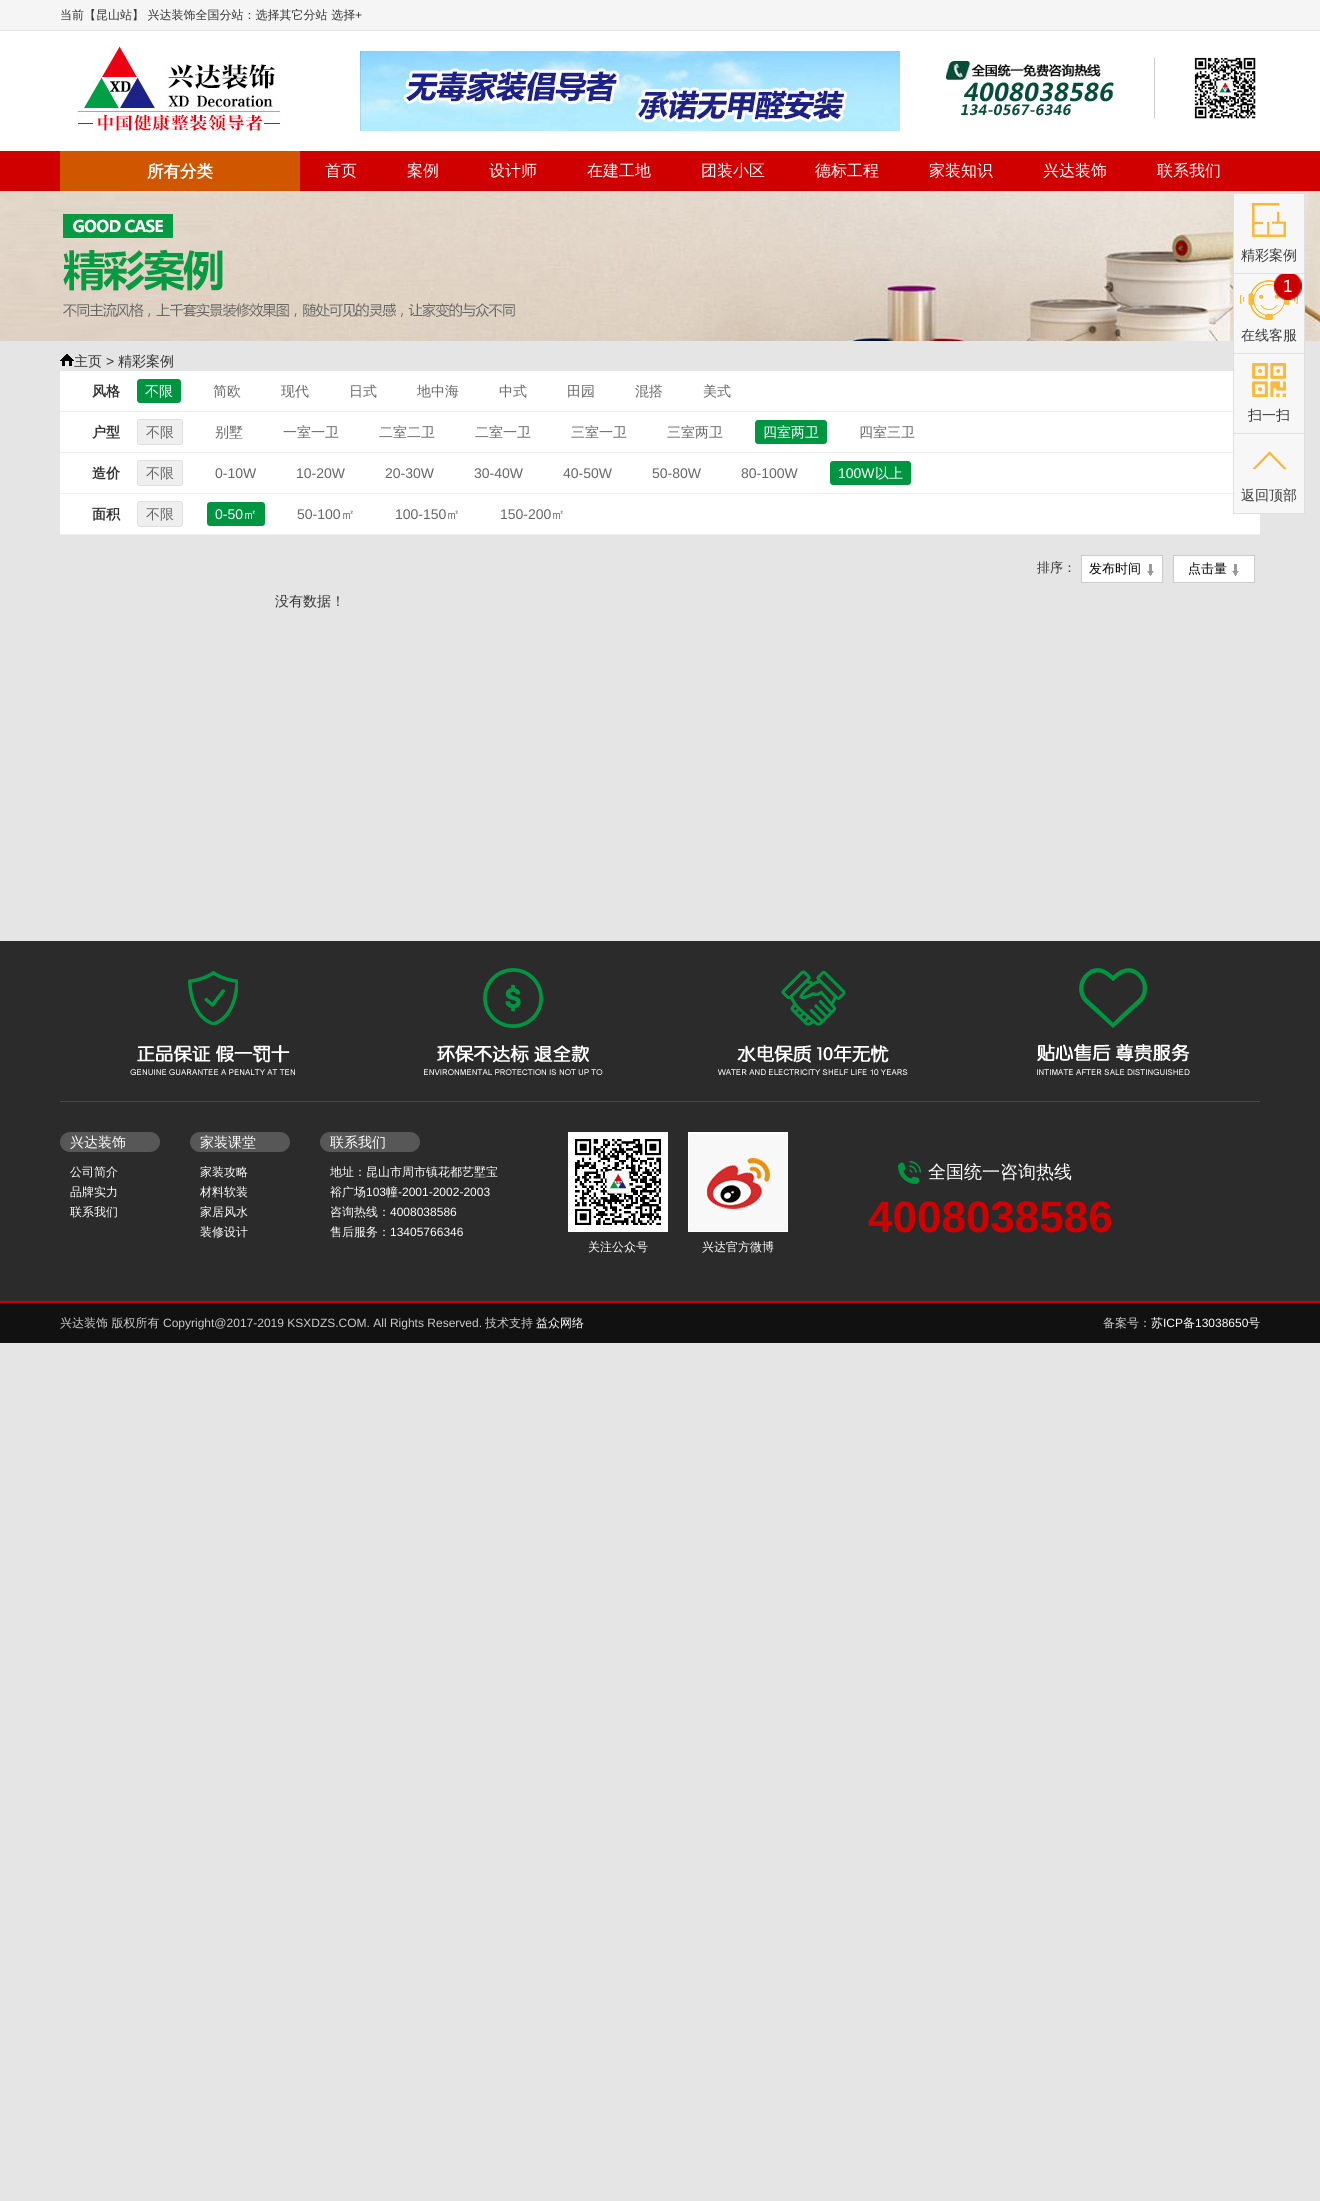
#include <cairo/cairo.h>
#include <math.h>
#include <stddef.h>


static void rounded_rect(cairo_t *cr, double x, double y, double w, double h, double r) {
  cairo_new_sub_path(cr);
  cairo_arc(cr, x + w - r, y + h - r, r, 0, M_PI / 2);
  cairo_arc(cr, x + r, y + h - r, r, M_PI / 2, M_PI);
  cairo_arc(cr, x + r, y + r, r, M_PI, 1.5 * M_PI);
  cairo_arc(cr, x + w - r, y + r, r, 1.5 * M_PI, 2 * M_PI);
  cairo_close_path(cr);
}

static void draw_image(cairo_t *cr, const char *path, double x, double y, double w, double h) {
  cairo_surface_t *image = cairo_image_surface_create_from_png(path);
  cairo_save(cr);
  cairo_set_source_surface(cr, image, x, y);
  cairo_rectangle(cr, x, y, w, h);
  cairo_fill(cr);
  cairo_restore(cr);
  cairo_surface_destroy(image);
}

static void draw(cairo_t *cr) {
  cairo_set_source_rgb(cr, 229 / 255.0, 229 / 255.0, 229 / 255.0);
  cairo_paint(cr);
  cairo_set_source_rgb(cr, 245 / 255.0, 245 / 255.0, 245 / 255.0);
  cairo_rectangle(cr, 0, 0, 1320, 30);
  cairo_fill(cr);
  cairo_set_source_rgb(cr, 1, 1, 1);
  cairo_rectangle(cr, 0, 31, 1320, 120);
  cairo_fill(cr);
  draw_image(cr, "images/1.png", 76, 46, 208, 86);
  draw_image(cr, "images/2.png", 360, 51, 540, 80);
  draw_image(cr, "images/3.png", 945, 53, 315, 66);
  cairo_set_source_rgb(cr, 208 / 255.0, 0, 0);
  cairo_rectangle(cr, 0, 151, 1320, 40);
  cairo_fill(cr);
  cairo_set_source_rgb(cr, 208 / 255.0, 86 / 255.0, 0);
  cairo_rectangle(cr, 60, 151, 240, 40);
  cairo_fill(cr);
  draw_image(cr, "images/4.png", 0, 191, 1320, 150);
  draw_image(cr, "images/5.png", 60, 354, 14, 12);
  cairo_set_source_rgb(cr, 1, 1, 1);
  cairo_rectangle(cr, 60, 371, 1200, 163);
  cairo_fill(cr);
  cairo_set_source_rgb(cr, 247 / 255.0, 247 / 255.0, 248 / 255.0);
  cairo_rectangle(cr, 1234, 194, 70, 319);
  cairo_fill(cr);
  cairo_set_source_rgb(cr, 224 / 255.0, 224 / 255.0, 224 / 255.0);
  cairo_rectangle(cr, 1233, 193, 72, 1);
  cairo_fill(cr);
  cairo_rectangle(cr, 1304, 193, 1, 321);
  cairo_fill(cr);
  cairo_rectangle(cr, 1233, 193, 1, 321);
  cairo_fill(cr);
  cairo_rectangle(cr, 1234, 273, 70, 1);
  cairo_fill(cr);
  draw_image(cr, "images/6.png", 1252, 203, 34, 34);
  cairo_rectangle(cr, 1234, 353, 70, 1);
  cairo_fill(cr);
  draw_image(cr, "images/7.png", 1240, 274, 62, 46);
  cairo_rectangle(cr, 1234, 433, 70, 1);
  cairo_fill(cr);
  draw_image(cr, "images/8.png", 1252, 363, 34, 34);
  cairo_rectangle(cr, 1234, 513, 70, 1);
  cairo_fill(cr);
  draw_image(cr, "images/9.png", 1252, 451, 35, 18);
  cairo_set_source_rgb(cr, 238 / 255.0, 238 / 255.0, 238 / 255.0);
  cairo_rectangle(cr, 60, 411, 1173, 1);
  cairo_fill(cr);
  cairo_set_source_rgb(cr, 0, 150 / 255.0, 65 / 255.0);
  rounded_rect(cr, 137, 379, 44, 24, 3);
  cairo_fill(cr);
  cairo_set_source_rgb(cr, 238 / 255.0, 238 / 255.0, 238 / 255.0);
  cairo_rectangle(cr, 60, 452, 1173, 1);
  cairo_fill(cr);
  cairo_set_source_rgb(cr, 239 / 255.0, 239 / 255.0, 239 / 255.0);
  rounded_rect(cr, 137.5, 419.5, 45, 25, 2.5);
  cairo_fill_preserve(cr);
  cairo_set_source_rgb(cr, 224 / 255.0, 224 / 255.0, 224 / 255.0);
  cairo_set_line_width(cr, 1);
  cairo_stroke(cr);
  cairo_set_source_rgb(cr, 0, 150 / 255.0, 65 / 255.0);
  rounded_rect(cr, 755, 420, 72, 24, 3);
  cairo_fill(cr);
  cairo_set_source_rgb(cr, 238 / 255.0, 238 / 255.0, 238 / 255.0);
  cairo_rectangle(cr, 60, 493, 1173, 1);
  cairo_fill(cr);
  cairo_set_source_rgb(cr, 239 / 255.0, 239 / 255.0, 239 / 255.0);
  rounded_rect(cr, 137.5, 460.5, 45, 25, 2.5);
  cairo_fill_preserve(cr);
  cairo_set_source_rgb(cr, 224 / 255.0, 224 / 255.0, 224 / 255.0);
  cairo_stroke(cr);
  cairo_set_source_rgb(cr, 0, 150 / 255.0, 65 / 255.0);
  rounded_rect(cr, 830, 461, 81, 24, 3);
  cairo_fill(cr);
  cairo_set_source_rgb(cr, 238 / 255.0, 238 / 255.0, 238 / 255.0);
  cairo_rectangle(cr, 60, 534, 1200, 1);
  cairo_fill(cr);
  cairo_set_source_rgb(cr, 239 / 255.0, 239 / 255.0, 239 / 255.0);
  rounded_rect(cr, 137.5, 501.5, 45, 25, 2.5);
  cairo_fill_preserve(cr);
  cairo_set_source_rgb(cr, 224 / 255.0, 224 / 255.0, 224 / 255.0);
  cairo_stroke(cr);
  cairo_set_source_rgb(cr, 0, 150 / 255.0, 65 / 255.0);
  rounded_rect(cr, 207, 502, 58, 24, 3);
  cairo_fill(cr);
  cairo_set_source_rgb(cr, 1, 1, 1);
  cairo_rectangle(cr, 1081.5, 555.5, 81, 27);
  cairo_fill_preserve(cr);
  cairo_set_source_rgb(cr, 204 / 255.0, 204 / 255.0, 204 / 255.0);
  cairo_stroke(cr);
  draw_image(cr, "images/10.png", 1147, 564, 7, 12);
  cairo_set_source_rgb(cr, 1, 1, 1);
  cairo_rectangle(cr, 1173.5, 555.5, 81, 27);
  cairo_fill_preserve(cr);
  cairo_set_source_rgb(cr, 204 / 255.0, 204 / 255.0, 204 / 255.0);
  cairo_stroke(cr);
  draw_image(cr, "images/10.png", 1232, 564, 7, 12);
  cairo_set_source_rgb(cr, 43 / 255.0, 43 / 255.0, 43 / 255.0);
  cairo_rectangle(cr, 0, 941, 1320, 360);
  cairo_fill(cr);
  cairo_set_source_rgb(cr, 208 / 255.0, 0, 0);
  cairo_rectangle(cr, 0, 1301, 1320, 2);
  cairo_fill(cr);
  cairo_set_source_rgb(cr, 75 / 255.0, 75 / 255.0, 75 / 255.0);
  cairo_rectangle(cr, 60, 1101, 1200, 1);
  cairo_fill(cr);
  draw_image(cr, "images/11.png", 130, 968, 1060, 107);
  cairo_set_source_rgb(cr, 87 / 255.0, 87 / 255.0, 87 / 255.0);
  rounded_rect(cr, 60, 1132, 100, 20, 10);
  cairo_fill(cr);
  rounded_rect(cr, 190, 1132, 100, 20, 10);
  cairo_fill(cr);
  rounded_rect(cr, 320, 1132, 100, 20, 10);
  cairo_fill(cr);
  draw_image(cr, "images/12.png", 898, 1161, 23, 23);
  draw_image(cr, "images/13.png", 568, 1132, 100, 100);
  draw_image(cr, "images/14.png", 688, 1132, 100, 100);
  cairo_set_source_rgb(cr, 17 / 255.0, 17 / 255.0, 17 / 255.0);
  cairo_rectangle(cr, 0, 1303, 1320, 40);
  cairo_fill(cr);
  cairo_select_font_face(cr, "WenQuanYi Zen Hei Medium", CAIRO_FONT_SLANT_NORMAL, CAIRO_FONT_WEIGHT_NORMAL);
  cairo_set_font_size(cr, 12);
  cairo_set_source_rgb(cr, 51 / 255.0, 51 / 255.0, 51 / 255.0);
  cairo_move_to(cr, 60, 19);
  cairo_show_text(cr, "当前【昆山站");
  cairo_move_to(cr, 132, 19);
  cairo_show_text(cr, "】 兴达装饰全国分站：选择其它分站 选择");
  cairo_select_font_face(cr, "Liberation Sans", CAIRO_FONT_SLANT_NORMAL, CAIRO_FONT_WEIGHT_NORMAL);
  cairo_move_to(cr, 355, 19);
  cairo_show_text(cr, "+");
  cairo_select_font_face(cr, "WenQuanYi Zen Hei", CAIRO_FONT_SLANT_NORMAL, CAIRO_FONT_WEIGHT_BOLD);
  cairo_set_font_size(cr, 16.5);
  cairo_set_source_rgb(cr, 1, 1, 1);
  cairo_move_to(cr, 147, 177);
  cairo_show_text(cr, "所有分类");
  cairo_select_font_face(cr, "WenQuanYi Zen Hei Medium", CAIRO_FONT_SLANT_NORMAL, CAIRO_FONT_WEIGHT_NORMAL);
  cairo_set_font_size(cr, 16);
  cairo_move_to(cr, 325, 176);
  cairo_show_text(cr, "首页");
  cairo_move_to(cr, 407, 176);
  cairo_show_text(cr, "案例");
  cairo_move_to(cr, 489, 176);
  cairo_show_text(cr, "设计师");
  cairo_move_to(cr, 587, 176);
  cairo_show_text(cr, "在建工地");
  cairo_move_to(cr, 701, 176);
  cairo_show_text(cr, "团装小区");
  cairo_move_to(cr, 815, 176);
  cairo_show_text(cr, "德标工程");
  cairo_move_to(cr, 929, 176);
  cairo_show_text(cr, "家装知识");
  cairo_move_to(cr, 1043, 176);
  cairo_show_text(cr, "兴达装饰");
  cairo_move_to(cr, 1157, 176);
  cairo_show_text(cr, "联系我们");
  cairo_set_font_size(cr, 14);
  cairo_set_source_rgb(cr, 51 / 255.0, 51 / 255.0, 51 / 255.0);
  cairo_move_to(cr, 74, 366);
  cairo_show_text(cr, "主页");
  cairo_select_font_face(cr, "Liberation Sans", CAIRO_FONT_SLANT_NORMAL, CAIRO_FONT_WEIGHT_NORMAL);
  cairo_move_to(cr, 106, 366);
  cairo_show_text(cr, ">");
  cairo_select_font_face(cr, "WenQuanYi Zen Hei Medium", CAIRO_FONT_SLANT_NORMAL, CAIRO_FONT_WEIGHT_NORMAL);
  cairo_move_to(cr, 118, 366);
  cairo_show_text(cr, "精彩案例");
  cairo_set_source_rgb(cr, 57 / 255.0, 57 / 255.0, 57 / 255.0);
  cairo_move_to(cr, 1241, 260);
  cairo_show_text(cr, "精彩案例");
  cairo_move_to(cr, 1241, 340);
  cairo_show_text(cr, "在线客服");
  cairo_move_to(cr, 1248, 420);
  cairo_show_text(cr, "扫一扫");
  cairo_move_to(cr, 1241, 500);
  cairo_show_text(cr, "返回顶部");
  cairo_select_font_face(cr, "WenQuanYi Zen Hei", CAIRO_FONT_SLANT_NORMAL, CAIRO_FONT_WEIGHT_BOLD);
  cairo_set_source_rgb(cr, 51 / 255.0, 51 / 255.0, 51 / 255.0);
  cairo_move_to(cr, 92, 396);
  cairo_show_text(cr, "风格");
  cairo_select_font_face(cr, "WenQuanYi Zen Hei Medium", CAIRO_FONT_SLANT_NORMAL, CAIRO_FONT_WEIGHT_NORMAL);
  cairo_set_source_rgb(cr, 1, 1, 1);
  cairo_move_to(cr, 145, 396);
  cairo_show_text(cr, "不限");
  cairo_set_source_rgb(cr, 102 / 255.0, 102 / 255.0, 102 / 255.0);
  cairo_move_to(cr, 213, 396);
  cairo_show_text(cr, "简欧");
  cairo_move_to(cr, 281, 396);
  cairo_show_text(cr, "现代");
  cairo_move_to(cr, 349, 396);
  cairo_show_text(cr, "日式");
  cairo_move_to(cr, 417, 396);
  cairo_show_text(cr, "地中海");
  cairo_move_to(cr, 499, 396);
  cairo_show_text(cr, "中式");
  cairo_move_to(cr, 567, 396);
  cairo_show_text(cr, "田园");
  cairo_move_to(cr, 635, 396);
  cairo_show_text(cr, "混搭");
  cairo_move_to(cr, 703, 396);
  cairo_show_text(cr, "美式");
  cairo_select_font_face(cr, "WenQuanYi Zen Hei", CAIRO_FONT_SLANT_NORMAL, CAIRO_FONT_WEIGHT_BOLD);
  cairo_set_source_rgb(cr, 51 / 255.0, 51 / 255.0, 51 / 255.0);
  cairo_move_to(cr, 92, 437);
  cairo_show_text(cr, "户型");
  cairo_select_font_face(cr, "WenQuanYi Zen Hei Medium", CAIRO_FONT_SLANT_NORMAL, CAIRO_FONT_WEIGHT_NORMAL);
  cairo_set_source_rgb(cr, 102 / 255.0, 102 / 255.0, 102 / 255.0);
  cairo_move_to(cr, 146, 437);
  cairo_show_text(cr, "不限");
  cairo_move_to(cr, 215, 437);
  cairo_show_text(cr, "别墅");
  cairo_move_to(cr, 283, 437);
  cairo_show_text(cr, "一室一卫");
  cairo_move_to(cr, 379, 437);
  cairo_show_text(cr, "二室二卫");
  cairo_move_to(cr, 475, 437);
  cairo_show_text(cr, "二室一卫");
  cairo_move_to(cr, 571, 437);
  cairo_show_text(cr, "三室一卫");
  cairo_move_to(cr, 667, 437);
  cairo_show_text(cr, "三室两卫");
  cairo_set_source_rgb(cr, 1, 1, 1);
  cairo_move_to(cr, 763, 437);
  cairo_show_text(cr, "四室两卫");
  cairo_set_source_rgb(cr, 102 / 255.0, 102 / 255.0, 102 / 255.0);
  cairo_move_to(cr, 859, 437);
  cairo_show_text(cr, "四室三卫");
  cairo_select_font_face(cr, "WenQuanYi Zen Hei", CAIRO_FONT_SLANT_NORMAL, CAIRO_FONT_WEIGHT_BOLD);
  cairo_set_source_rgb(cr, 51 / 255.0, 51 / 255.0, 51 / 255.0);
  cairo_move_to(cr, 92, 478);
  cairo_show_text(cr, "造价");
  cairo_select_font_face(cr, "WenQuanYi Zen Hei Medium", CAIRO_FONT_SLANT_NORMAL, CAIRO_FONT_WEIGHT_NORMAL);
  cairo_set_source_rgb(cr, 102 / 255.0, 102 / 255.0, 102 / 255.0);
  cairo_move_to(cr, 146, 478);
  cairo_show_text(cr, "不限");
  cairo_select_font_face(cr, "Liberation Sans", CAIRO_FONT_SLANT_NORMAL, CAIRO_FONT_WEIGHT_NORMAL);
  cairo_move_to(cr, 215, 478);
  cairo_show_text(cr, "0-10W");
  cairo_move_to(cr, 296, 478);
  cairo_show_text(cr, "10-20W");
  cairo_move_to(cr, 385, 478);
  cairo_show_text(cr, "20-30W");
  cairo_move_to(cr, 474, 478);
  cairo_show_text(cr, "30-40W");
  cairo_move_to(cr, 563, 478);
  cairo_show_text(cr, "40-50W");
  cairo_move_to(cr, 652, 478);
  cairo_show_text(cr, "50-80W");
  cairo_move_to(cr, 741, 478);
  cairo_show_text(cr, "80-100W");
  cairo_set_source_rgb(cr, 1, 1, 1);
  cairo_move_to(cr, 838, 478);
  cairo_show_text(cr, "100W");
  cairo_select_font_face(cr, "WenQuanYi Zen Hei Medium", CAIRO_FONT_SLANT_NORMAL, CAIRO_FONT_WEIGHT_NORMAL);
  cairo_move_to(cr, 875, 478);
  cairo_show_text(cr, "以上");
  cairo_select_font_face(cr, "WenQuanYi Zen Hei", CAIRO_FONT_SLANT_NORMAL, CAIRO_FONT_WEIGHT_BOLD);
  cairo_set_source_rgb(cr, 51 / 255.0, 51 / 255.0, 51 / 255.0);
  cairo_move_to(cr, 92, 519);
  cairo_show_text(cr, "面积");
  cairo_select_font_face(cr, "WenQuanYi Zen Hei Medium", CAIRO_FONT_SLANT_NORMAL, CAIRO_FONT_WEIGHT_NORMAL);
  cairo_set_source_rgb(cr, 102 / 255.0, 102 / 255.0, 102 / 255.0);
  cairo_move_to(cr, 146, 519);
  cairo_show_text(cr, "不限");
  cairo_select_font_face(cr, "Liberation Sans", CAIRO_FONT_SLANT_NORMAL, CAIRO_FONT_WEIGHT_NORMAL);
  cairo_set_source_rgb(cr, 1, 1, 1);
  cairo_move_to(cr, 215, 519);
  cairo_show_text(cr, "0-50");
  cairo_select_font_face(cr, "WenQuanYi Zen Hei Medium", CAIRO_FONT_SLANT_NORMAL, CAIRO_FONT_WEIGHT_NORMAL);
  cairo_move_to(cr, 243, 519);
  cairo_show_text(cr, "㎡");
  cairo_select_font_face(cr, "Liberation Sans", CAIRO_FONT_SLANT_NORMAL, CAIRO_FONT_WEIGHT_NORMAL);
  cairo_set_source_rgb(cr, 102 / 255.0, 102 / 255.0, 102 / 255.0);
  cairo_move_to(cr, 297, 519);
  cairo_show_text(cr, "50-100");
  cairo_select_font_face(cr, "WenQuanYi Zen Hei Medium", CAIRO_FONT_SLANT_NORMAL, CAIRO_FONT_WEIGHT_NORMAL);
  cairo_move_to(cr, 341, 519);
  cairo_show_text(cr, "㎡");
  cairo_select_font_face(cr, "Liberation Sans", CAIRO_FONT_SLANT_NORMAL, CAIRO_FONT_WEIGHT_NORMAL);
  cairo_move_to(cr, 395, 519);
  cairo_show_text(cr, "100-150");
  cairo_select_font_face(cr, "WenQuanYi Zen Hei Medium", CAIRO_FONT_SLANT_NORMAL, CAIRO_FONT_WEIGHT_NORMAL);
  cairo_move_to(cr, 446, 519);
  cairo_show_text(cr, "㎡");
  cairo_select_font_face(cr, "Liberation Sans", CAIRO_FONT_SLANT_NORMAL, CAIRO_FONT_WEIGHT_NORMAL);
  cairo_move_to(cr, 500, 519);
  cairo_show_text(cr, "150-200");
  cairo_select_font_face(cr, "WenQuanYi Zen Hei Medium", CAIRO_FONT_SLANT_NORMAL, CAIRO_FONT_WEIGHT_NORMAL);
  cairo_move_to(cr, 551, 519);
  cairo_show_text(cr, "㎡");
  cairo_set_font_size(cr, 13);
  cairo_set_source_rgb(cr, 51 / 255.0, 51 / 255.0, 51 / 255.0);
  cairo_move_to(cr, 1037, 572);
  cairo_show_text(cr, "排序：");
  cairo_set_source_rgb(cr, 0, 0, 0);
  cairo_move_to(cr, 1089, 573);
  cairo_show_text(cr, "发布时间");
  cairo_move_to(cr, 1188, 573);
  cairo_show_text(cr, "点击量");
  cairo_set_font_size(cr, 14);
  cairo_set_source_rgb(cr, 51 / 255.0, 51 / 255.0, 51 / 255.0);
  cairo_move_to(cr, 275, 606);
  cairo_show_text(cr, "没有数据！");
  cairo_set_source_rgb(cr, 1, 1, 1);
  cairo_move_to(cr, 70, 1147);
  cairo_show_text(cr, "兴达装饰");
  cairo_set_font_size(cr, 12);
  cairo_move_to(cr, 70, 1176);
  cairo_show_text(cr, "公司简介");
  cairo_move_to(cr, 70, 1196);
  cairo_show_text(cr, "品牌实力");
  cairo_move_to(cr, 70, 1216);
  cairo_show_text(cr, "联系我们");
  cairo_set_font_size(cr, 14);
  cairo_move_to(cr, 200, 1147);
  cairo_show_text(cr, "家装课堂");
  cairo_set_font_size(cr, 12);
  cairo_move_to(cr, 200, 1176);
  cairo_show_text(cr, "家装攻略");
  cairo_move_to(cr, 200, 1196);
  cairo_show_text(cr, "材料软装");
  cairo_move_to(cr, 200, 1216);
  cairo_show_text(cr, "家居风水");
  cairo_move_to(cr, 200, 1236);
  cairo_show_text(cr, "装修设计");
  cairo_set_font_size(cr, 14);
  cairo_move_to(cr, 330, 1147);
  cairo_show_text(cr, "联系我们");
  cairo_set_font_size(cr, 12);
  cairo_move_to(cr, 330, 1176);
  cairo_show_text(cr, "地址：昆山市周市镇花都艺墅宝");
  cairo_move_to(cr, 330, 1196);
  cairo_show_text(cr, "裕广场");
  cairo_select_font_face(cr, "Liberation Sans", CAIRO_FONT_SLANT_NORMAL, CAIRO_FONT_WEIGHT_NORMAL);
  cairo_move_to(cr, 366, 1196);
  cairo_show_text(cr, "103");
  cairo_select_font_face(cr, "WenQuanYi Zen Hei Medium", CAIRO_FONT_SLANT_NORMAL, CAIRO_FONT_WEIGHT_NORMAL);
  cairo_move_to(cr, 386, 1196);
  cairo_show_text(cr, "幢");
  cairo_select_font_face(cr, "Liberation Sans", CAIRO_FONT_SLANT_NORMAL, CAIRO_FONT_WEIGHT_NORMAL);
  cairo_move_to(cr, 398, 1196);
  cairo_show_text(cr, "-2001-2002-2003");
  cairo_select_font_face(cr, "WenQuanYi Zen Hei Medium", CAIRO_FONT_SLANT_NORMAL, CAIRO_FONT_WEIGHT_NORMAL);
  cairo_move_to(cr, 330, 1216);
  cairo_show_text(cr, "咨询热线：");
  cairo_select_font_face(cr, "Liberation Sans", CAIRO_FONT_SLANT_NORMAL, CAIRO_FONT_WEIGHT_NORMAL);
  cairo_move_to(cr, 390, 1216);
  cairo_show_text(cr, "4008038586");
  cairo_select_font_face(cr, "WenQuanYi Zen Hei Medium", CAIRO_FONT_SLANT_NORMAL, CAIRO_FONT_WEIGHT_NORMAL);
  cairo_move_to(cr, 330, 1236);
  cairo_show_text(cr, "售后服务：");
  cairo_select_font_face(cr, "Liberation Sans", CAIRO_FONT_SLANT_NORMAL, CAIRO_FONT_WEIGHT_NORMAL);
  cairo_move_to(cr, 390, 1236);
  cairo_show_text(cr, "13405766346");
  cairo_select_font_face(cr, "WenQuanYi Zen Hei Medium", CAIRO_FONT_SLANT_NORMAL, CAIRO_FONT_WEIGHT_NORMAL);
  cairo_set_font_size(cr, 18);
  cairo_move_to(cr, 928, 1178);
  cairo_show_text(cr, "全国统一咨询热线");
  cairo_select_font_face(cr, "Liberation Sans", CAIRO_FONT_SLANT_NORMAL, CAIRO_FONT_WEIGHT_BOLD);
  cairo_set_font_size(cr, 44);
  cairo_set_source_rgb(cr, 208 / 255.0, 0, 0);
  cairo_move_to(cr, 868, 1232);
  cairo_show_text(cr, "4008038586");
  cairo_select_font_face(cr, "WenQuanYi Zen Hei Medium", CAIRO_FONT_SLANT_NORMAL, CAIRO_FONT_WEIGHT_NORMAL);
  cairo_set_font_size(cr, 12);
  cairo_set_source_rgb(cr, 1, 1, 1);
  cairo_move_to(cr, 588, 1251);
  cairo_show_text(cr, "关注公众号");
  cairo_move_to(cr, 702, 1251);
  cairo_show_text(cr, "兴达官方微博");
  cairo_set_source_rgb(cr, 204 / 255.0, 204 / 255.0, 204 / 255.0);
  cairo_move_to(cr, 60, 1327);
  cairo_show_text(cr, "兴达装饰 版权所有");
  cairo_select_font_face(cr, "Liberation Sans", CAIRO_FONT_SLANT_NORMAL, CAIRO_FONT_WEIGHT_NORMAL);
  cairo_move_to(cr, 163, 1327);
  cairo_show_text(cr, "Copyright@2017-2019 KSXDZS.COM. All Rights Reserved.");
  cairo_select_font_face(cr, "WenQuanYi Zen Hei Medium", CAIRO_FONT_SLANT_NORMAL, CAIRO_FONT_WEIGHT_NORMAL);
  cairo_move_to(cr, 485, 1327);
  cairo_show_text(cr, "技术支持");
  cairo_set_source_rgb(cr, 1, 1, 1);
  cairo_move_to(cr, 536, 1327);
  cairo_show_text(cr, "益众网络");
  cairo_set_source_rgb(cr, 204 / 255.0, 204 / 255.0, 204 / 255.0);
  cairo_move_to(cr, 1103, 1327);
  cairo_show_text(cr, "备案号：");
  cairo_set_source_rgb(cr, 1, 1, 1);
  cairo_move_to(cr, 1151, 1327);
  cairo_show_text(cr, "苏");
  cairo_select_font_face(cr, "Liberation Sans", CAIRO_FONT_SLANT_NORMAL, CAIRO_FONT_WEIGHT_NORMAL);
  cairo_move_to(cr, 1163, 1327);
  cairo_show_text(cr, "ICP");
  cairo_select_font_face(cr, "WenQuanYi Zen Hei Medium", CAIRO_FONT_SLANT_NORMAL, CAIRO_FONT_WEIGHT_NORMAL);
  cairo_move_to(cr, 1183, 1327);
  cairo_show_text(cr, "备");
  cairo_select_font_face(cr, "Liberation Sans", CAIRO_FONT_SLANT_NORMAL, CAIRO_FONT_WEIGHT_NORMAL);
  cairo_move_to(cr, 1195, 1327);
  cairo_show_text(cr, "13038650");
  cairo_select_font_face(cr, "WenQuanYi Zen Hei Medium", CAIRO_FONT_SLANT_NORMAL, CAIRO_FONT_WEIGHT_NORMAL);
  cairo_move_to(cr, 1248, 1327);
  cairo_show_text(cr, "号");
}

int main(void) {
  cairo_surface_t *surface = cairo_image_surface_create(CAIRO_FORMAT_RGB24, 1320, 2201);
  cairo_t *cr = cairo_create(surface);
  cairo_font_options_t *options = cairo_font_options_create();
  cairo_font_options_set_hint_metrics(options, CAIRO_HINT_METRICS_OFF);
  cairo_font_options_set_hint_style(options, CAIRO_HINT_STYLE_NONE);
  cairo_set_font_options(cr, options);
  cairo_set_miter_limit(cr, 4);
  draw(cr);
  cairo_surface_write_to_png(surface, "out.png");
  cairo_font_options_destroy(options);
  cairo_destroy(cr);
  cairo_surface_destroy(surface);
  return 0;
}
